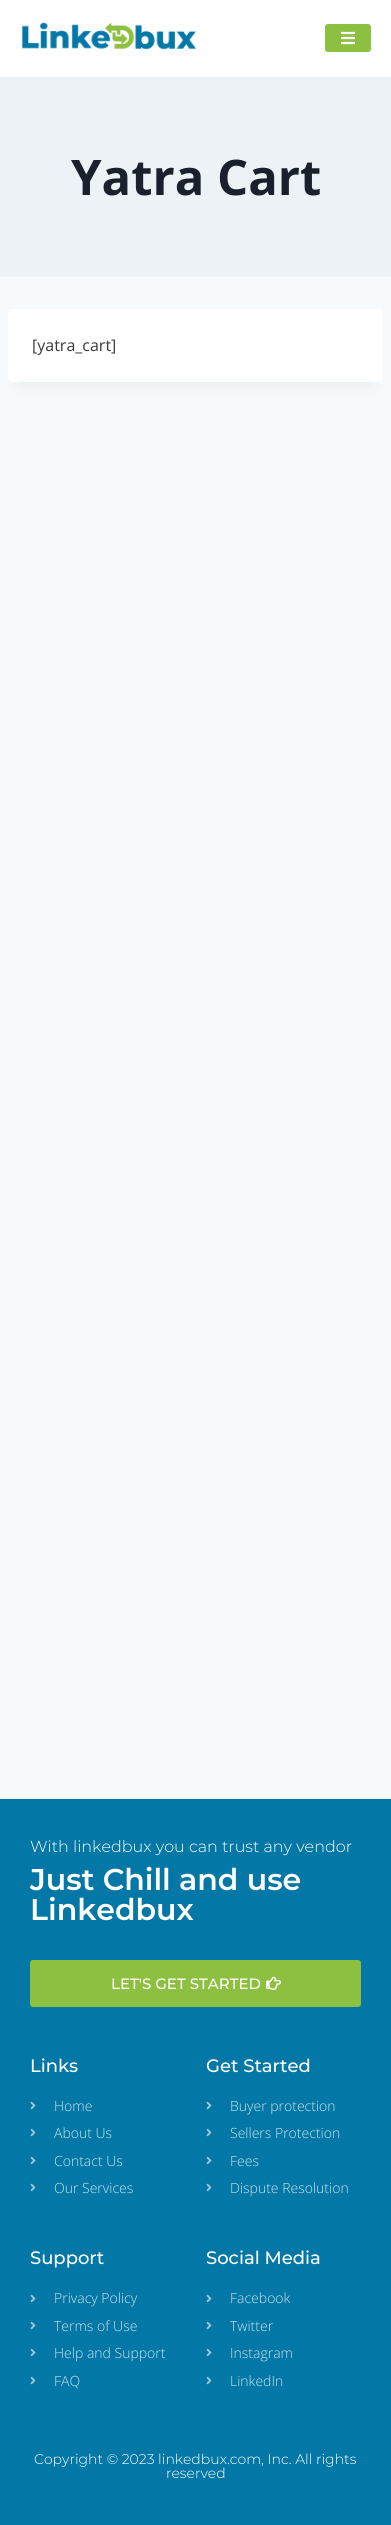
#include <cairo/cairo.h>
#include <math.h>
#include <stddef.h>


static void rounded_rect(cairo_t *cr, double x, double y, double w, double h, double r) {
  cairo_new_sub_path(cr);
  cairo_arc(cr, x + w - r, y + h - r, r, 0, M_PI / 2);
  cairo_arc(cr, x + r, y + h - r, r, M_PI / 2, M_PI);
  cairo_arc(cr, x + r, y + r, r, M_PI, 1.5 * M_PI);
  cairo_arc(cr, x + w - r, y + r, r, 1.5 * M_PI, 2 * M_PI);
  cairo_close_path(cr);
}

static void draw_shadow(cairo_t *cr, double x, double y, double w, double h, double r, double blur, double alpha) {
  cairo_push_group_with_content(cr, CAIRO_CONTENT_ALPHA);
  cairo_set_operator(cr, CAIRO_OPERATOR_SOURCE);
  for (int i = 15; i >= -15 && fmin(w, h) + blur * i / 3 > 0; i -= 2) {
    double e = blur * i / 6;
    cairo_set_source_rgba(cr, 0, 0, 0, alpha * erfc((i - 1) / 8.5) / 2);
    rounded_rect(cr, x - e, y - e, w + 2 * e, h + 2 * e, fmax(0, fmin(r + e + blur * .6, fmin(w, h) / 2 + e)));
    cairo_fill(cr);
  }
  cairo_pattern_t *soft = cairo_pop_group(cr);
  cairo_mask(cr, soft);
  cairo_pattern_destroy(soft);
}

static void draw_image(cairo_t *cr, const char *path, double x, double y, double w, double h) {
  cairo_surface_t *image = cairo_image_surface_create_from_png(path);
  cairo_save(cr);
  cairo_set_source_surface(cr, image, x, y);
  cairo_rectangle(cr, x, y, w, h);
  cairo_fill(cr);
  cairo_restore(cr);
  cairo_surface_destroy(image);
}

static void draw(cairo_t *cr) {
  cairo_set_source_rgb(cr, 247 / 255.0, 250 / 255.0, 252 / 255.0);
  cairo_paint(cr);
  cairo_set_source_rgb(cr, 1, 1, 1);
  cairo_rectangle(cr, 0, 0, 391, 77);
  cairo_fill(cr);
  draw_image(cr, "images/1.png", 21, 22, 175, 28);
  cairo_set_source_rgb(cr, 141 / 255.0, 191 / 255.0, 65 / 255.0);
  rounded_rect(cr, 325.5, 24.5, 45, 27, 2.5);
  cairo_fill_preserve(cr);
  cairo_set_line_width(cr, 1);
  cairo_stroke(cr);
  draw_image(cr, "images/2.png", 341, 31, 14, 14);
  cairo_set_source_rgb(cr, 237 / 255.0, 242 / 255.0, 247 / 255.0);
  cairo_rectangle(cr, 0, 77, 391, 200);
  cairo_fill(cr);
  cairo_set_source_rgb(cr, 0, 0, 0);
  draw_shadow(cr, 18, 334, 355, 53, 0, 7.5, 0.05);
  cairo_set_source_rgb(cr, 1, 1, 1);
  rounded_rect(cr, 8, 309, 375, 73, 4);
  cairo_fill(cr);
  cairo_set_source_rgb(cr, 3 / 255.0, 120 / 255.0, 166 / 255.0);
  cairo_rectangle(cr, 0, 1799, 391, 726);
  cairo_fill(cr);
  cairo_set_source_rgb(cr, 141 / 255.0, 191 / 255.0, 65 / 255.0);
  rounded_rect(cr, 30.5, 1960.5, 330, 46, 2.5);
  cairo_fill_preserve(cr);
  cairo_stroke(cr);
  draw_image(cr, "images/3.png", 266, 1976, 15, 14);
  draw_image(cr, "images/4.png", 30, 2101, 6, 9);
  draw_image(cr, "images/4.png", 30, 2128, 6, 9);
  draw_image(cr, "images/4.png", 30, 2156, 6, 9);
  draw_image(cr, "images/4.png", 30, 2183, 6, 9);
  draw_image(cr, "images/4.png", 206, 2101, 6, 9);
  draw_image(cr, "images/4.png", 206, 2128, 6, 9);
  draw_image(cr, "images/4.png", 206, 2156, 6, 9);
  draw_image(cr, "images/4.png", 206, 2183, 6, 9);
  draw_image(cr, "images/4.png", 30, 2294, 6, 9);
  draw_image(cr, "images/4.png", 30, 2321, 6, 9);
  draw_image(cr, "images/4.png", 30, 2348, 6, 9);
  draw_image(cr, "images/4.png", 30, 2376, 6, 9);
  draw_image(cr, "images/4.png", 206, 2294, 6, 9);
  draw_image(cr, "images/4.png", 206, 2321, 6, 9);
  draw_image(cr, "images/4.png", 206, 2348, 6, 9);
  draw_image(cr, "images/4.png", 206, 2376, 6, 9);
  cairo_select_font_face(cr, "Open Sans", CAIRO_FONT_SLANT_NORMAL, CAIRO_FONT_WEIGHT_BOLD);
  cairo_set_font_size(cr, 49);
  cairo_set_source_rgb(cr, 26 / 255.0, 32 / 255.0, 44 / 255.0);
  cairo_move_to(cr, 71, 195);
  cairo_show_text(cr, "Yatra Cart");
  cairo_select_font_face(cr, "Open Sans", CAIRO_FONT_SLANT_NORMAL, CAIRO_FONT_WEIGHT_NORMAL);
  cairo_set_font_size(cr, 16);
  cairo_set_source_rgb(cr, 58 / 255.0, 58 / 255.0, 58 / 255.0);
  cairo_move_to(cr, 32, 351);
  cairo_show_text(cr, "[yatra_cart]");
  cairo_select_font_face(cr, "Montserrat Light", CAIRO_FONT_SLANT_NORMAL, CAIRO_FONT_WEIGHT_NORMAL);
  cairo_set_source_rgb(cr, 1, 1, 1);
  cairo_move_to(cr, 30, 1852);
  cairo_show_text(cr, "With linkedbux you can trust any vendor");
  cairo_select_font_face(cr, "Montserrat SemiBold", CAIRO_FONT_SLANT_NORMAL, CAIRO_FONT_WEIGHT_NORMAL);
  cairo_set_font_size(cr, 30);
  cairo_move_to(cr, 30, 1890);
  cairo_show_text(cr, "Just Chill and use");
  cairo_move_to(cr, 30, 1920);
  cairo_show_text(cr, "Linkedbux");
  cairo_select_font_face(cr, "Montserrat Medium", CAIRO_FONT_SLANT_NORMAL, CAIRO_FONT_WEIGHT_NORMAL);
  cairo_set_font_size(cr, 15);
  cairo_move_to(cr, 111, 1989);
  cairo_show_text(cr, "LET'S GET STARTED");
  cairo_set_font_size(cr, 18);
  cairo_move_to(cr, 30, 2072);
  cairo_show_text(cr, "Links");
  cairo_select_font_face(cr, "Open Sans Light", CAIRO_FONT_SLANT_NORMAL, CAIRO_FONT_WEIGHT_NORMAL);
  cairo_set_font_size(cr, 14);
  cairo_set_source_rgb(cr, 202 / 255.0, 227 / 255.0, 236 / 255.0);
  cairo_move_to(cr, 54, 2111);
  cairo_show_text(cr, "Home");
  cairo_move_to(cr, 54, 2138);
  cairo_show_text(cr, "About Us");
  cairo_move_to(cr, 54, 2166);
  cairo_show_text(cr, "Contact Us");
  cairo_move_to(cr, 54, 2193);
  cairo_show_text(cr, "Our Services");
  cairo_select_font_face(cr, "Montserrat Medium", CAIRO_FONT_SLANT_NORMAL, CAIRO_FONT_WEIGHT_NORMAL);
  cairo_set_font_size(cr, 18);
  cairo_set_source_rgb(cr, 1, 1, 1);
  cairo_move_to(cr, 206, 2072);
  cairo_show_text(cr, "Get Started");
  cairo_select_font_face(cr, "Open Sans Light", CAIRO_FONT_SLANT_NORMAL, CAIRO_FONT_WEIGHT_NORMAL);
  cairo_set_font_size(cr, 14);
  cairo_set_source_rgb(cr, 202 / 255.0, 227 / 255.0, 236 / 255.0);
  cairo_move_to(cr, 230, 2111);
  cairo_show_text(cr, "Buyer protection");
  cairo_move_to(cr, 230, 2138);
  cairo_show_text(cr, "Sellers Protection");
  cairo_move_to(cr, 230, 2166);
  cairo_show_text(cr, "Fees");
  cairo_move_to(cr, 230, 2193);
  cairo_show_text(cr, "Dispute Resolution");
  cairo_select_font_face(cr, "Montserrat Medium", CAIRO_FONT_SLANT_NORMAL, CAIRO_FONT_WEIGHT_NORMAL);
  cairo_set_font_size(cr, 18);
  cairo_set_source_rgb(cr, 1, 1, 1);
  cairo_move_to(cr, 30, 2264);
  cairo_show_text(cr, "Support");
  cairo_select_font_face(cr, "Open Sans Light", CAIRO_FONT_SLANT_NORMAL, CAIRO_FONT_WEIGHT_NORMAL);
  cairo_set_font_size(cr, 14);
  cairo_set_source_rgb(cr, 202 / 255.0, 227 / 255.0, 236 / 255.0);
  cairo_move_to(cr, 54, 2303);
  cairo_show_text(cr, "Privacy Policy");
  cairo_move_to(cr, 54, 2331);
  cairo_show_text(cr, "Terms of Use");
  cairo_move_to(cr, 54, 2358);
  cairo_show_text(cr, "Help and Support");
  cairo_move_to(cr, 54, 2386);
  cairo_show_text(cr, "FAQ");
  cairo_select_font_face(cr, "Montserrat Medium", CAIRO_FONT_SLANT_NORMAL, CAIRO_FONT_WEIGHT_NORMAL);
  cairo_set_font_size(cr, 18);
  cairo_set_source_rgb(cr, 1, 1, 1);
  cairo_move_to(cr, 206, 2264);
  cairo_show_text(cr, "Social Media");
  cairo_select_font_face(cr, "Open Sans Light", CAIRO_FONT_SLANT_NORMAL, CAIRO_FONT_WEIGHT_NORMAL);
  cairo_set_font_size(cr, 14);
  cairo_set_source_rgb(cr, 202 / 255.0, 227 / 255.0, 236 / 255.0);
  cairo_move_to(cr, 230, 2303);
  cairo_show_text(cr, "Facebook");
  cairo_move_to(cr, 230, 2331);
  cairo_show_text(cr, "Twitter");
  cairo_move_to(cr, 230, 2358);
  cairo_show_text(cr, "Instagram");
  cairo_move_to(cr, 230, 2386);
  cairo_show_text(cr, "LinkedIn");
  cairo_select_font_face(cr, "Montserrat Light", CAIRO_FONT_SLANT_NORMAL, CAIRO_FONT_WEIGHT_NORMAL);
  cairo_set_source_rgb(cr, 1, 1, 1);
  cairo_move_to(cr, 34, 2464);
  cairo_show_text(cr, "Copyright © 2023 linkedbux.com, Inc. All rights");
  cairo_move_to(cr, 166, 2478);
  cairo_show_text(cr, "reserved");
}

int main(void) {
  cairo_surface_t *surface = cairo_image_surface_create(CAIRO_FORMAT_RGB24, 391, 2525);
  cairo_t *cr = cairo_create(surface);
  cairo_font_options_t *options = cairo_font_options_create();
  cairo_font_options_set_hint_metrics(options, CAIRO_HINT_METRICS_OFF);
  cairo_font_options_set_hint_style(options, CAIRO_HINT_STYLE_NONE);
  cairo_set_font_options(cr, options);
  cairo_set_miter_limit(cr, 4);
  draw(cr);
  cairo_surface_write_to_png(surface, "out.png");
  cairo_font_options_destroy(options);
  cairo_destroy(cr);
  cairo_surface_destroy(surface);
  return 0;
}
